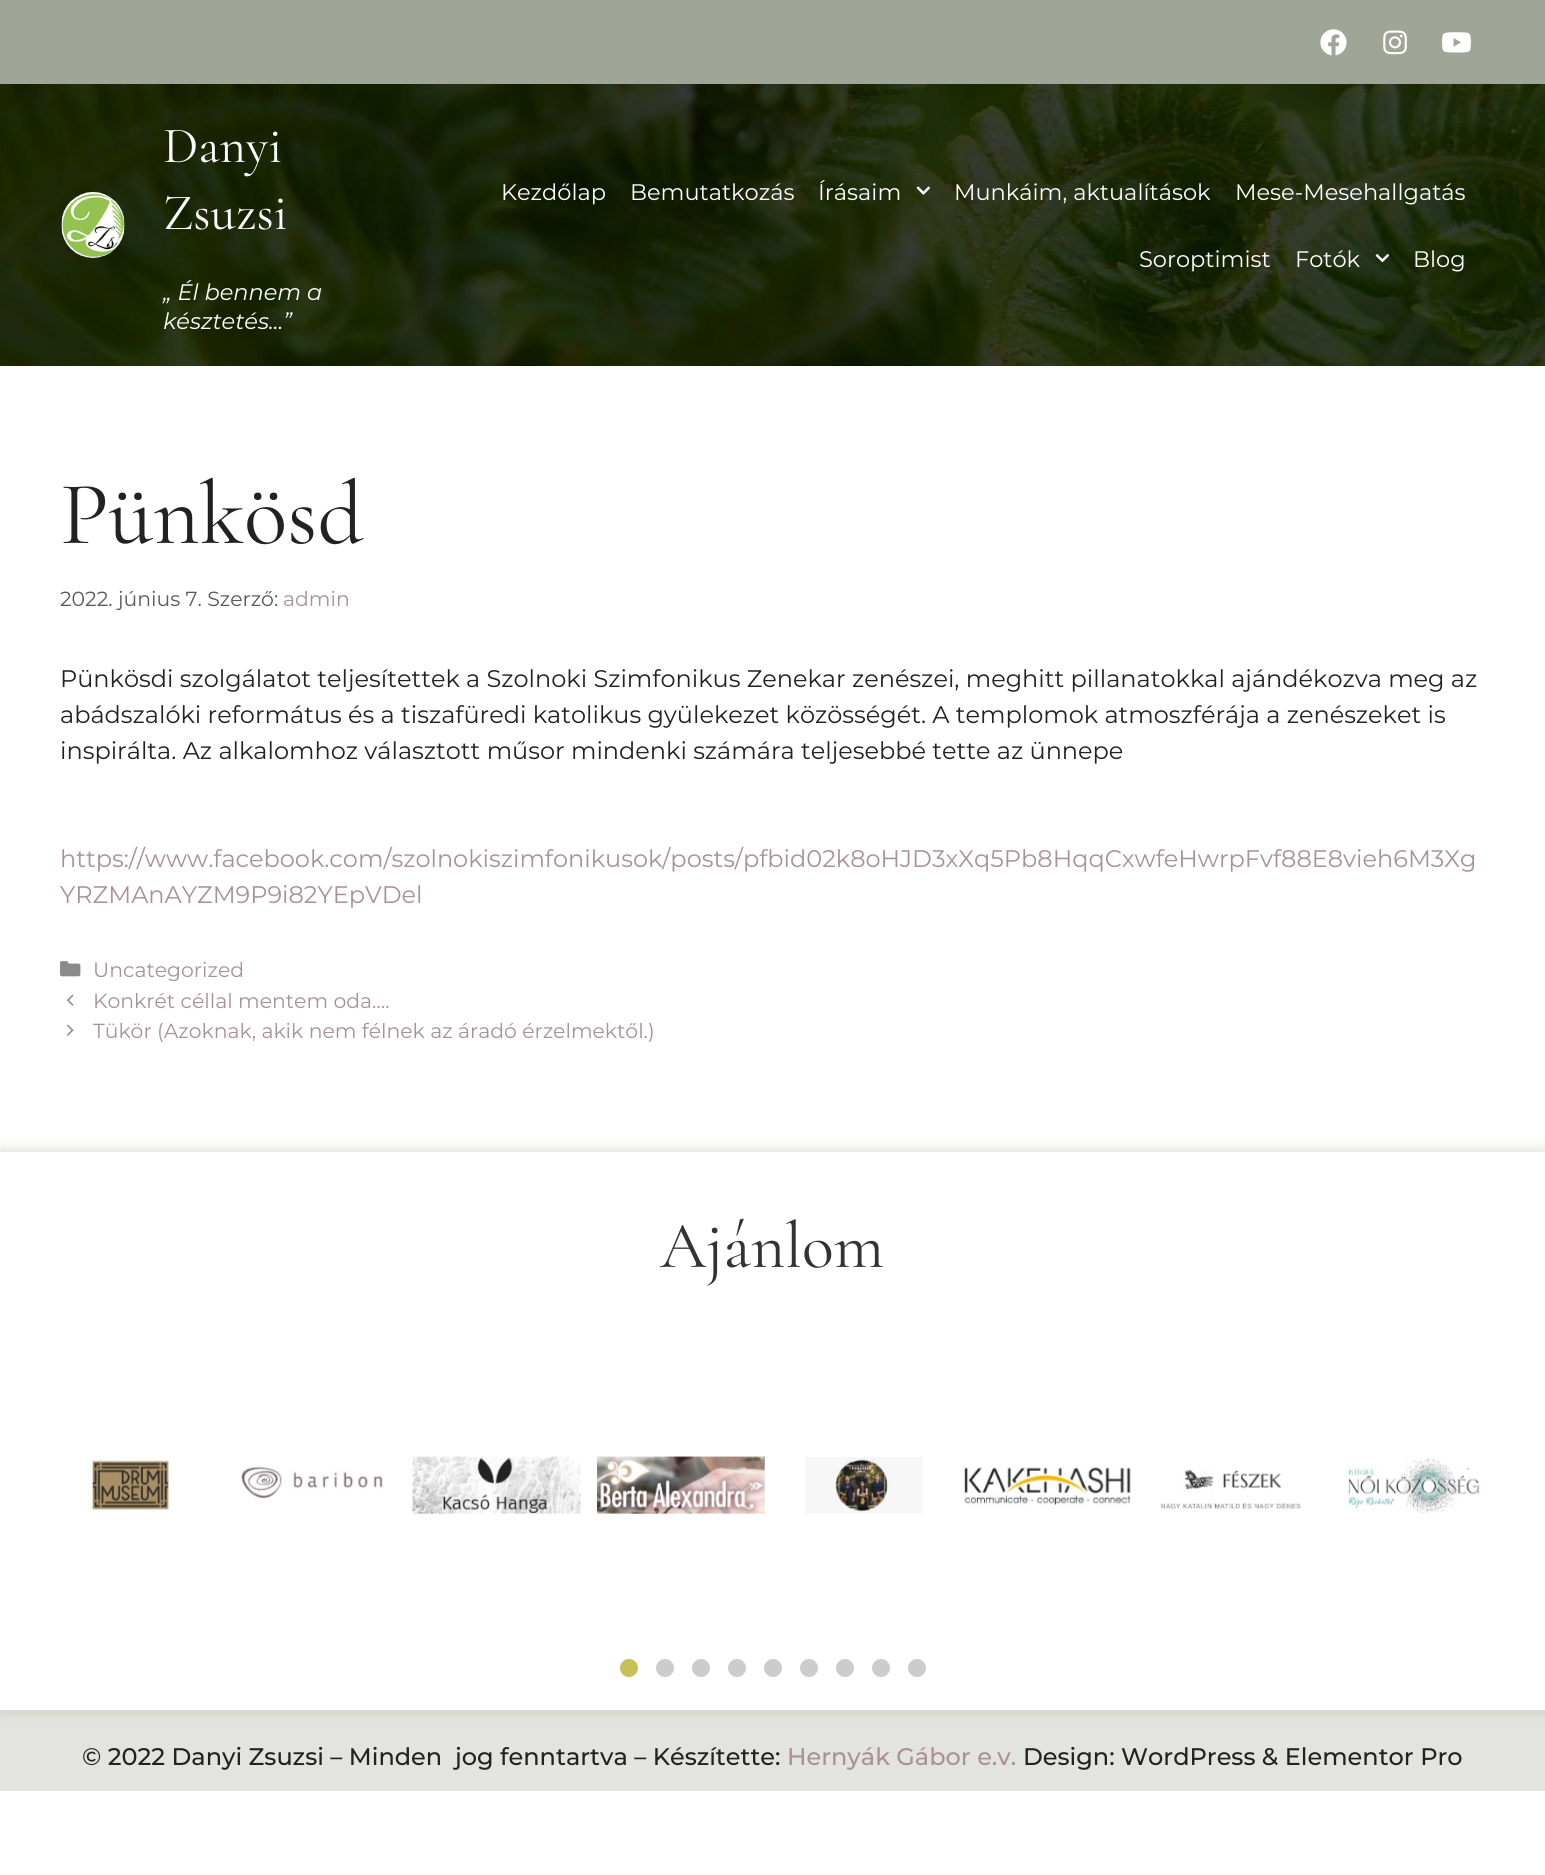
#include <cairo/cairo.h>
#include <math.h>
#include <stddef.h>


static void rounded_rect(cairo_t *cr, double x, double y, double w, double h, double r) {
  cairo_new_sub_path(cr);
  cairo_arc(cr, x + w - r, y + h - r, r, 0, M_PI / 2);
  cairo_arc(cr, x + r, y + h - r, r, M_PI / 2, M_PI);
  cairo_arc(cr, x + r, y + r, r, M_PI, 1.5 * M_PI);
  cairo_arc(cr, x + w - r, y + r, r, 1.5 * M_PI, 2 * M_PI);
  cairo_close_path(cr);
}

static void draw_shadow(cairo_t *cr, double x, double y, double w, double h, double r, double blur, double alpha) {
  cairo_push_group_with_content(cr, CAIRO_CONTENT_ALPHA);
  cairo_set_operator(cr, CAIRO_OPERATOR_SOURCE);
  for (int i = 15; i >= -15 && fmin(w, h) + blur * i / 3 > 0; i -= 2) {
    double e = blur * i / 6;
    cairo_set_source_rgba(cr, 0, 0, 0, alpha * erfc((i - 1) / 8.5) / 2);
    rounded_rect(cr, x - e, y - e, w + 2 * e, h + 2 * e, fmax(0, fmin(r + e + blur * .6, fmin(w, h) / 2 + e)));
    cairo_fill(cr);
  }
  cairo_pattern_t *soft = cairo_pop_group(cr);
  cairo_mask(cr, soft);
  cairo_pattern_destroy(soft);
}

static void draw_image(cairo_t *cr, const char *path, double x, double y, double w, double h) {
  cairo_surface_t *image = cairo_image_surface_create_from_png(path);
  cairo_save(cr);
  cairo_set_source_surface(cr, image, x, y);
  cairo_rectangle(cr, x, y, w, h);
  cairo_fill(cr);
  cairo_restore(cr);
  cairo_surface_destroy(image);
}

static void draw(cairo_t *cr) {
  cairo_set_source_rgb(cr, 1, 1, 1);
  cairo_paint(cr);
  cairo_set_source_rgb(cr, 160 / 255.0, 166 / 255.0, 151 / 255.0);
  cairo_rectangle(cr, 0, 0, 1545, 84);
  cairo_fill(cr);
  draw_image(cr, "images/1.png", 1320, 29, 27, 27);
  draw_image(cr, "images/2.png", 1383, 30, 24, 25);
  draw_image(cr, "images/3.png", 1442, 32, 29, 21);
  draw_image(cr, "images/4.png", 0, 84, 1545, 282);
  draw_image(cr, "images/5.png", 61, 192, 64, 66);
  draw_image(cr, "images/6.png", 916, 186, 14, 9);
  draw_image(cr, "images/7.png", 1375, 254, 15, 9);
  draw_image(cr, "images/8.png", 60, 961, 21, 16);
  draw_image(cr, "images/9.png", 67, 994, 7, 12);
  draw_image(cr, "images/10.png", 67, 1024, 7, 12);
  cairo_save(cr);
  cairo_set_fill_rule(cr, CAIRO_FILL_RULE_EVEN_ODD);
  cairo_new_path(cr);
  cairo_move_to(cr, 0, 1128);
  cairo_line_to(cr, 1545, 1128);
  cairo_line_to(cr, 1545, 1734);
  cairo_line_to(cr, 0, 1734);
  cairo_close_path(cr);
  cairo_move_to(cr, 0, 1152);
  cairo_line_to(cr, 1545, 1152);
  cairo_line_to(cr, 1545, 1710);
  cairo_line_to(cr, 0, 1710);
  cairo_close_path(cr);
  cairo_clip(cr);
  cairo_set_source_rgb(cr, 208 / 255.0, 215 / 255.0, 197 / 255.0);
  draw_shadow(cr, 0, 1152, 1545, 558, 0, 7.5, 1);
  cairo_restore(cr);
  draw_image(cr, "images/11.png", 88, 1458, 84, 55);
  draw_image(cr, "images/12.png", 240, 1465, 143, 34);
  draw_image(cr, "images/13.png", 412, 1456, 169, 58);
  draw_image(cr, "images/14.png", 597, 1456, 168, 58);
  draw_image(cr, "images/15.png", 805, 1457, 118, 57);
  draw_image(cr, "images/16.png", 964, 1467, 167, 38);
  draw_image(cr, "images/17.png", 1160, 1469, 141, 40);
  draw_image(cr, "images/18.png", 1346, 1457, 135, 57);
  cairo_set_source_rgb(cr, 200 / 255.0, 193 / 255.0, 86 / 255.0);
  cairo_arc(cr, 629, 1668, 9, 0, 2 * M_PI);
  cairo_fill(cr);
  cairo_set_source_rgb(cr, 204 / 255.0, 204 / 255.0, 204 / 255.0);
  cairo_arc(cr, 665, 1668, 9, 0, 2 * M_PI);
  cairo_fill(cr);
  cairo_arc(cr, 701, 1668, 9, 0, 2 * M_PI);
  cairo_fill(cr);
  cairo_arc(cr, 737, 1668, 9, 0, 2 * M_PI);
  cairo_fill(cr);
  cairo_arc(cr, 773, 1668, 9, 0, 2 * M_PI);
  cairo_fill(cr);
  cairo_arc(cr, 809, 1668, 9, 0, 2 * M_PI);
  cairo_fill(cr);
  cairo_arc(cr, 845, 1668, 9, 0, 2 * M_PI);
  cairo_fill(cr);
  cairo_arc(cr, 881, 1668, 9, 0, 2 * M_PI);
  cairo_fill(cr);
  cairo_arc(cr, 917, 1668, 9, 0, 2 * M_PI);
  cairo_fill(cr);
  cairo_set_source_rgba(cr, 160 / 255.0, 165 / 255.0, 151 / 255.0, 0.3);
  cairo_rectangle(cr, 0, 1710, 1545, 81);
  cairo_fill(cr);
  cairo_select_font_face(cr, "Cormorant Garamond", CAIRO_FONT_SLANT_NORMAL, CAIRO_FONT_WEIGHT_NORMAL);
  cairo_set_font_size(cr, 51);
  cairo_set_source_rgb(cr, 1, 1, 1);
  cairo_move_to(cr, 163, 162);
  cairo_show_text(cr, "Danyi");
  cairo_move_to(cr, 163, 229);
  cairo_show_text(cr, "Zsuzsi");
  cairo_select_font_face(cr, "Montserrat", CAIRO_FONT_SLANT_ITALIC, CAIRO_FONT_WEIGHT_NORMAL);
  cairo_set_font_size(cr, 22.5);
  cairo_move_to(cr, 163, 300);
  cairo_show_text(cr, "„ Él bennem a");
  cairo_move_to(cr, 163, 329);
  cairo_show_text(cr, "késztetés...”");
  cairo_select_font_face(cr, "Montserrat", CAIRO_FONT_SLANT_NORMAL, CAIRO_FONT_WEIGHT_NORMAL);
  cairo_move_to(cr, 501, 200);
  cairo_show_text(cr, "Kezdőlap");
  cairo_move_to(cr, 630, 200);
  cairo_show_text(cr, "Bemutatkozás");
  cairo_move_to(cr, 818, 200);
  cairo_show_text(cr, "Írásaim");
  cairo_move_to(cr, 954, 200);
  cairo_show_text(cr, "Munkáim, aktualítások");
  cairo_move_to(cr, 1235, 200);
  cairo_show_text(cr, "Mese-Mesehallgatás");
  cairo_move_to(cr, 1139, 267);
  cairo_show_text(cr, "Soroptimist");
  cairo_move_to(cr, 1295, 267);
  cairo_show_text(cr, "Fotók");
  cairo_move_to(cr, 1413, 267);
  cairo_show_text(cr, "Blog");
  cairo_select_font_face(cr, "Cormorant Garamond", CAIRO_FONT_SLANT_NORMAL, CAIRO_FONT_WEIGHT_NORMAL);
  cairo_set_font_size(cr, 90);
  cairo_set_source_rgb(cr, 34 / 255.0, 34 / 255.0, 34 / 255.0);
  cairo_move_to(cr, 60, 543);
  cairo_show_text(cr, "Pünkösd");
  cairo_select_font_face(cr, "Montserrat", CAIRO_FONT_SLANT_NORMAL, CAIRO_FONT_WEIGHT_NORMAL);
  cairo_set_font_size(cr, 20.4);
  cairo_set_source_rgb(cr, 89 / 255.0, 89 / 255.0, 89 / 255.0);
  cairo_move_to(cr, 60, 606);
  cairo_show_text(cr, "2022. június 7. Szerző:");
  cairo_set_source_rgb(cr, 171 / 255.0, 144 / 255.0, 148 / 255.0);
  cairo_move_to(cr, 283, 606);
  cairo_show_text(cr, "admin");
  cairo_set_font_size(cr, 24);
  cairo_set_source_rgb(cr, 34 / 255.0, 34 / 255.0, 34 / 255.0);
  cairo_move_to(cr, 60, 687);
  cairo_show_text(cr, "Pünkösdi szolgálatot teljesítettek a Szolnoki Szimfonikus Zenekar zenészei, meghitt pillanatokkal ajándékozva meg az");
  cairo_move_to(cr, 60, 723);
  cairo_show_text(cr, "abádszalóki református és a tiszafüredi katolikus gyülekezet közösségét. A templomok atmoszférája a zenészeket is");
  cairo_move_to(cr, 60, 759);
  cairo_show_text(cr, "inspirálta. Az alkalomhoz választott műsor mindenki számára teljesebbé tette az ünnepe");
  cairo_set_source_rgb(cr, 171 / 255.0, 144 / 255.0, 148 / 255.0);
  cairo_move_to(cr, 60, 867);
  cairo_show_text(cr, "https://www.facebook.com/szolnokiszimfonikusok/posts/pfbid02k8oHJD3xXq5Pb8HqqCxwfeHwrpFvf88E8vieh6M3Xg");
  cairo_move_to(cr, 60, 903);
  cairo_show_text(cr, "YRZMAnAYZM9P9i82YEpVDel");
  cairo_set_font_size(cr, 20.4);
  cairo_move_to(cr, 93, 977);
  cairo_show_text(cr, "Uncategorized");
  cairo_move_to(cr, 93, 1008);
  cairo_show_text(cr, "Konkrét céllal mentem oda….");
  cairo_move_to(cr, 93, 1038);
  cairo_show_text(cr, "Tükör (Azoknak, akik nem félnek az áradó érzelmektől.)");
  cairo_select_font_face(cr, "Cormorant Garamond", CAIRO_FONT_SLANT_NORMAL, CAIRO_FONT_WEIGHT_NORMAL);
  cairo_set_font_size(cr, 66);
  cairo_set_source_rgb(cr, 51 / 255.0, 51 / 255.0, 51 / 255.0);
  cairo_move_to(cr, 660, 1267);
  cairo_show_text(cr, "Ajánlom");
  cairo_select_font_face(cr, "Montserrat Medium", CAIRO_FONT_SLANT_NORMAL, CAIRO_FONT_WEIGHT_NORMAL);
  cairo_set_font_size(cr, 24);
  cairo_set_source_rgb(cr, 34 / 255.0, 34 / 255.0, 34 / 255.0);
  cairo_move_to(cr, 82, 1765);
  cairo_show_text(cr, "© 2022 Danyi Zsuzsi – Minden  jog fenntartva – Készítette:");
  cairo_set_source_rgb(cr, 171 / 255.0, 144 / 255.0, 148 / 255.0);
  cairo_move_to(cr, 787, 1765);
  cairo_show_text(cr, "Hernyák Gábor e.v.");
  cairo_set_source_rgb(cr, 34 / 255.0, 34 / 255.0, 34 / 255.0);
  cairo_move_to(cr, 1023, 1765);
  cairo_show_text(cr, "Design: WordPress & Elementor Pro");
}

int main(void) {
  cairo_surface_t *surface = cairo_image_surface_create(CAIRO_FORMAT_RGB24, 1545, 1875);
  cairo_t *cr = cairo_create(surface);
  cairo_font_options_t *options = cairo_font_options_create();
  cairo_font_options_set_hint_metrics(options, CAIRO_HINT_METRICS_OFF);
  cairo_font_options_set_hint_style(options, CAIRO_HINT_STYLE_NONE);
  cairo_set_font_options(cr, options);
  cairo_set_miter_limit(cr, 4);
  draw(cr);
  cairo_surface_write_to_png(surface, "out.png");
  cairo_font_options_destroy(options);
  cairo_destroy(cr);
  cairo_surface_destroy(surface);
  return 0;
}
